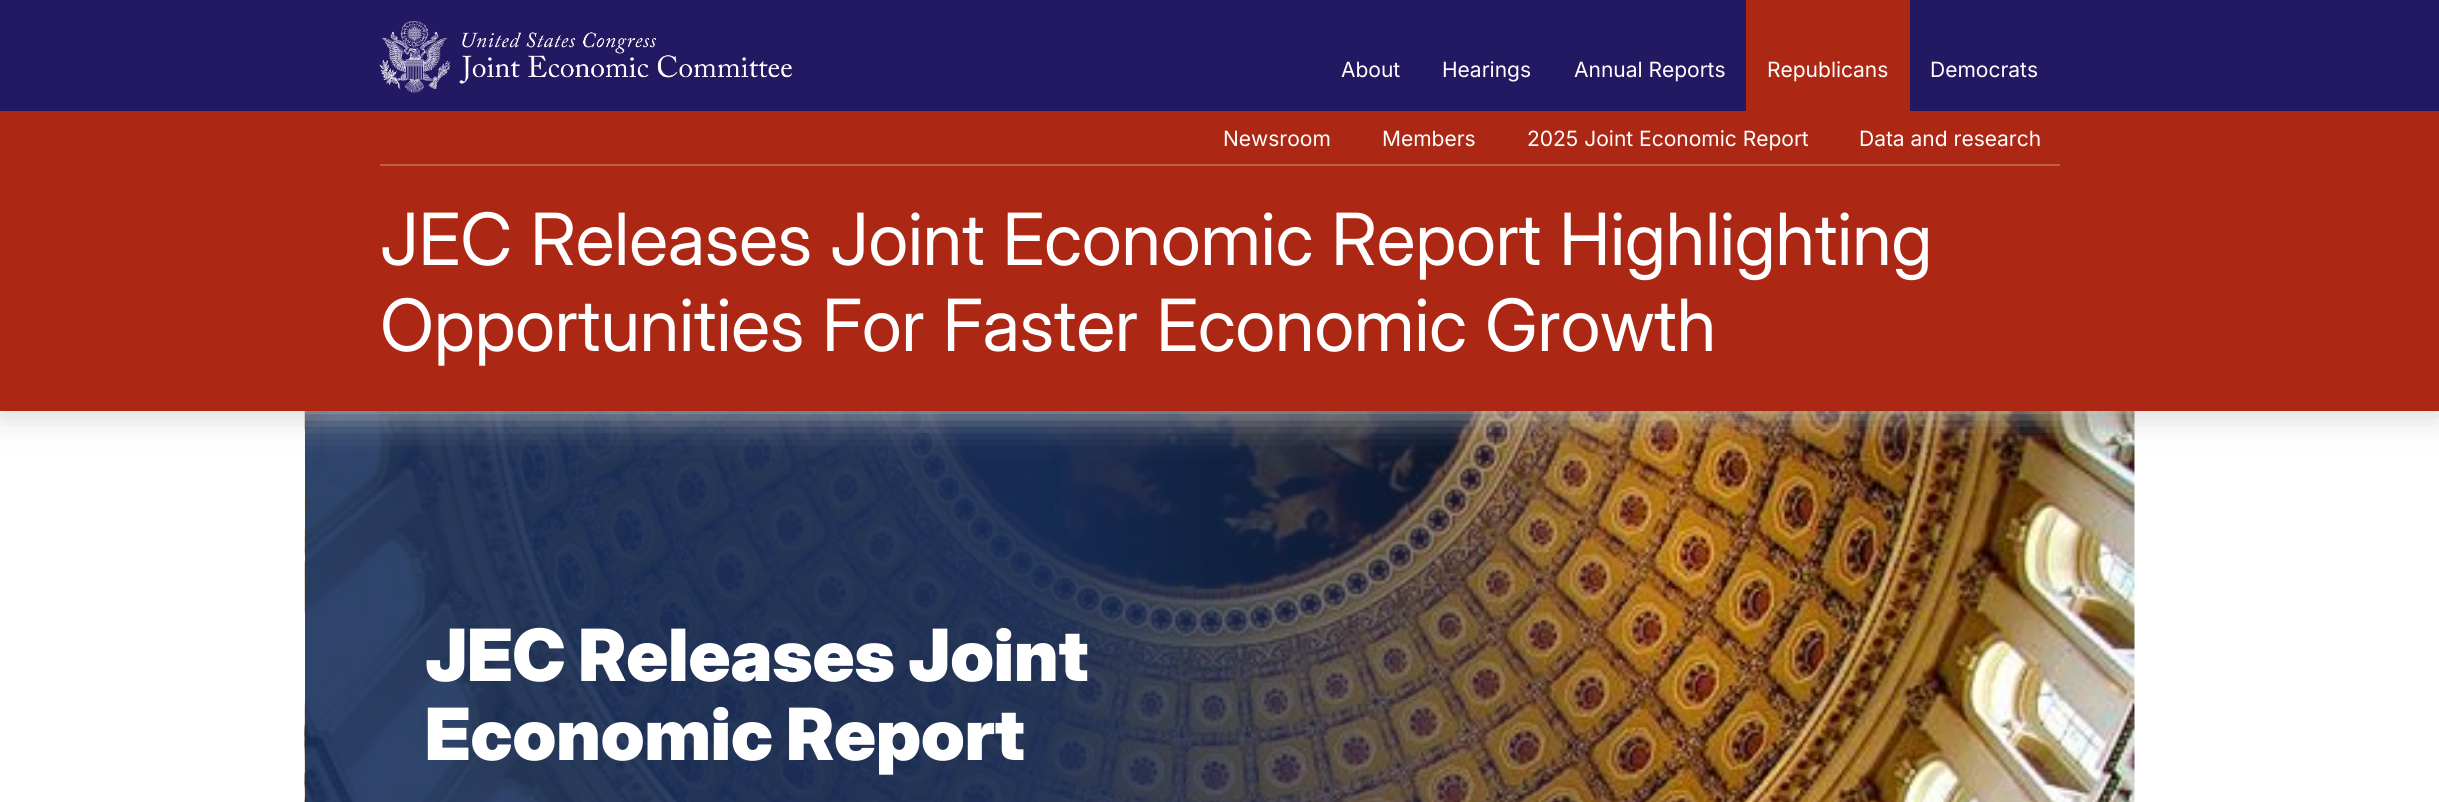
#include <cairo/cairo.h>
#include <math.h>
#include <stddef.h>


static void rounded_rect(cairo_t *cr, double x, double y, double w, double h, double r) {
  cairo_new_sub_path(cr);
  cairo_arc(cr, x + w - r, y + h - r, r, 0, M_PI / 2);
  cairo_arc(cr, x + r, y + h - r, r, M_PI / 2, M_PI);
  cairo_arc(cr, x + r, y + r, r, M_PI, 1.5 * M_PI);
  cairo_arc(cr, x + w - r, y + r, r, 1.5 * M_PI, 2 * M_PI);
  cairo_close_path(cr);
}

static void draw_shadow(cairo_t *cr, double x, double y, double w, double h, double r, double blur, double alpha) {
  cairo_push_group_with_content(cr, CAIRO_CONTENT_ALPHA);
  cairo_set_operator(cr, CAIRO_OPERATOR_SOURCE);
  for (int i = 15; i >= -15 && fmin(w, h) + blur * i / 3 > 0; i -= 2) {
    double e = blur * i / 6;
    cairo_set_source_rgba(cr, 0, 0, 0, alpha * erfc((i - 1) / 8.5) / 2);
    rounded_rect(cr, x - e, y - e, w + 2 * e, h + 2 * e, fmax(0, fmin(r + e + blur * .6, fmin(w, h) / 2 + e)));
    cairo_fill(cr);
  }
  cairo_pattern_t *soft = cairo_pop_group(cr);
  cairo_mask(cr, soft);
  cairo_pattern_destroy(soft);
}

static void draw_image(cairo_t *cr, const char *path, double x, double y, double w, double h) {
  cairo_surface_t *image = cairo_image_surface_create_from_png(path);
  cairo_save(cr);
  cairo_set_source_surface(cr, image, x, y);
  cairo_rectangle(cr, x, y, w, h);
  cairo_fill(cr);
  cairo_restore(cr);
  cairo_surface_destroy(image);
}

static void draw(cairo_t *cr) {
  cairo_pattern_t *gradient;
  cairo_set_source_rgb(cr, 1, 1, 1);
  cairo_paint(cr);
  draw_image(cr, "images/2.png", 304, 411, 1831, 391);
  gradient = cairo_pattern_create_linear(305, 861, 2135, 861);
  cairo_pattern_add_color_stop_rgba(gradient, 0.4, 23 / 255.0, 48 / 255.0, 92 / 255.0, 0.9);
  cairo_pattern_add_color_stop_rgba(gradient, 0.6, 23 / 255.0, 48 / 255.0, 92 / 255.0, 0.5);
  cairo_pattern_add_color_stop_rgba(gradient, 0.75, 23 / 255.0, 48 / 255.0, 92 / 255.0, 0);
  cairo_set_source(cr, gradient);
  cairo_pattern_destroy(gradient);
  cairo_rectangle(cr, 305, 411, 1361, 391);
  cairo_fill(cr);
  cairo_set_source_rgb(cr, 204 / 255.0, 204 / 255.0, 204 / 255.0);
  draw_shadow(cr, 0, 165, 2439, 246, 0, 19, 1);
  cairo_set_source_rgb(cr, 35 / 255.0, 25 / 255.0, 98 / 255.0);
  cairo_rectangle(cr, 0, 0, 2439, 111);
  cairo_fill(cr);
  draw_image(cr, "images/1.png", 379, 21, 413, 72);
  cairo_set_source_rgb(cr, 172 / 255.0, 40 / 255.0, 20 / 255.0);
  cairo_rectangle(cr, 1746, 0, 164, 111);
  cairo_fill(cr);
  cairo_rectangle(cr, 0, 111, 2439, 300);
  cairo_fill(cr);
  cairo_set_source_rgb(cr, 193 / 255.0, 94 / 255.0, 79 / 255.0);
  cairo_rectangle(cr, 380, 164, 1680, 2);
  cairo_fill(cr);
  cairo_select_font_face(cr, "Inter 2", CAIRO_FONT_SLANT_NORMAL, CAIRO_FONT_WEIGHT_NORMAL);
  cairo_set_font_size(cr, 21);
  cairo_set_source_rgb(cr, 1, 1, 1);
  cairo_move_to(cr, 1341, 77);
  cairo_show_text(cr, "About");
  cairo_move_to(cr, 1442, 77);
  cairo_show_text(cr, "Hearings");
  cairo_move_to(cr, 1574, 77);
  cairo_show_text(cr, "Annual Reports");
  cairo_move_to(cr, 1767, 77);
  cairo_show_text(cr, "Republicans");
  cairo_move_to(cr, 1930, 77);
  cairo_show_text(cr, "Democrats");
  cairo_move_to(cr, 1223, 146);
  cairo_show_text(cr, "Newsroom");
  cairo_move_to(cr, 1382, 146);
  cairo_show_text(cr, "Members");
  cairo_move_to(cr, 1527, 146);
  cairo_show_text(cr, "2025 Joint Economic Report");
  cairo_move_to(cr, 1859, 146);
  cairo_show_text(cr, "Data and research");
  cairo_select_font_face(cr, "Inter", CAIRO_FONT_SLANT_NORMAL, CAIRO_FONT_WEIGHT_NORMAL);
  cairo_set_font_size(cr, 72);
  cairo_move_to(cr, 380, 265);
  cairo_show_text(cr, "JEC Releases Joint Economic Report Highlighting");
  cairo_move_to(cr, 380, 351);
  cairo_show_text(cr, "Opportunities For Faster Economic Growth");
  cairo_select_font_face(cr, "Inter Black", CAIRO_FONT_SLANT_NORMAL, CAIRO_FONT_WEIGHT_NORMAL);
  cairo_move_to(cr, 425, 681);
  cairo_show_text(cr, "JEC Releases Joint");
  cairo_move_to(cr, 425, 760);
  cairo_show_text(cr, "Economic Report");
}

int main(void) {
  cairo_surface_t *surface = cairo_image_surface_create(CAIRO_FORMAT_RGB24, 2439, 802);
  cairo_t *cr = cairo_create(surface);
  cairo_font_options_t *options = cairo_font_options_create();
  cairo_font_options_set_hint_metrics(options, CAIRO_HINT_METRICS_OFF);
  cairo_font_options_set_hint_style(options, CAIRO_HINT_STYLE_NONE);
  cairo_set_font_options(cr, options);
  cairo_set_miter_limit(cr, 4);
  draw(cr);
  cairo_surface_write_to_png(surface, "out.png");
  cairo_font_options_destroy(options);
  cairo_destroy(cr);
  cairo_surface_destroy(surface);
  return 0;
}
